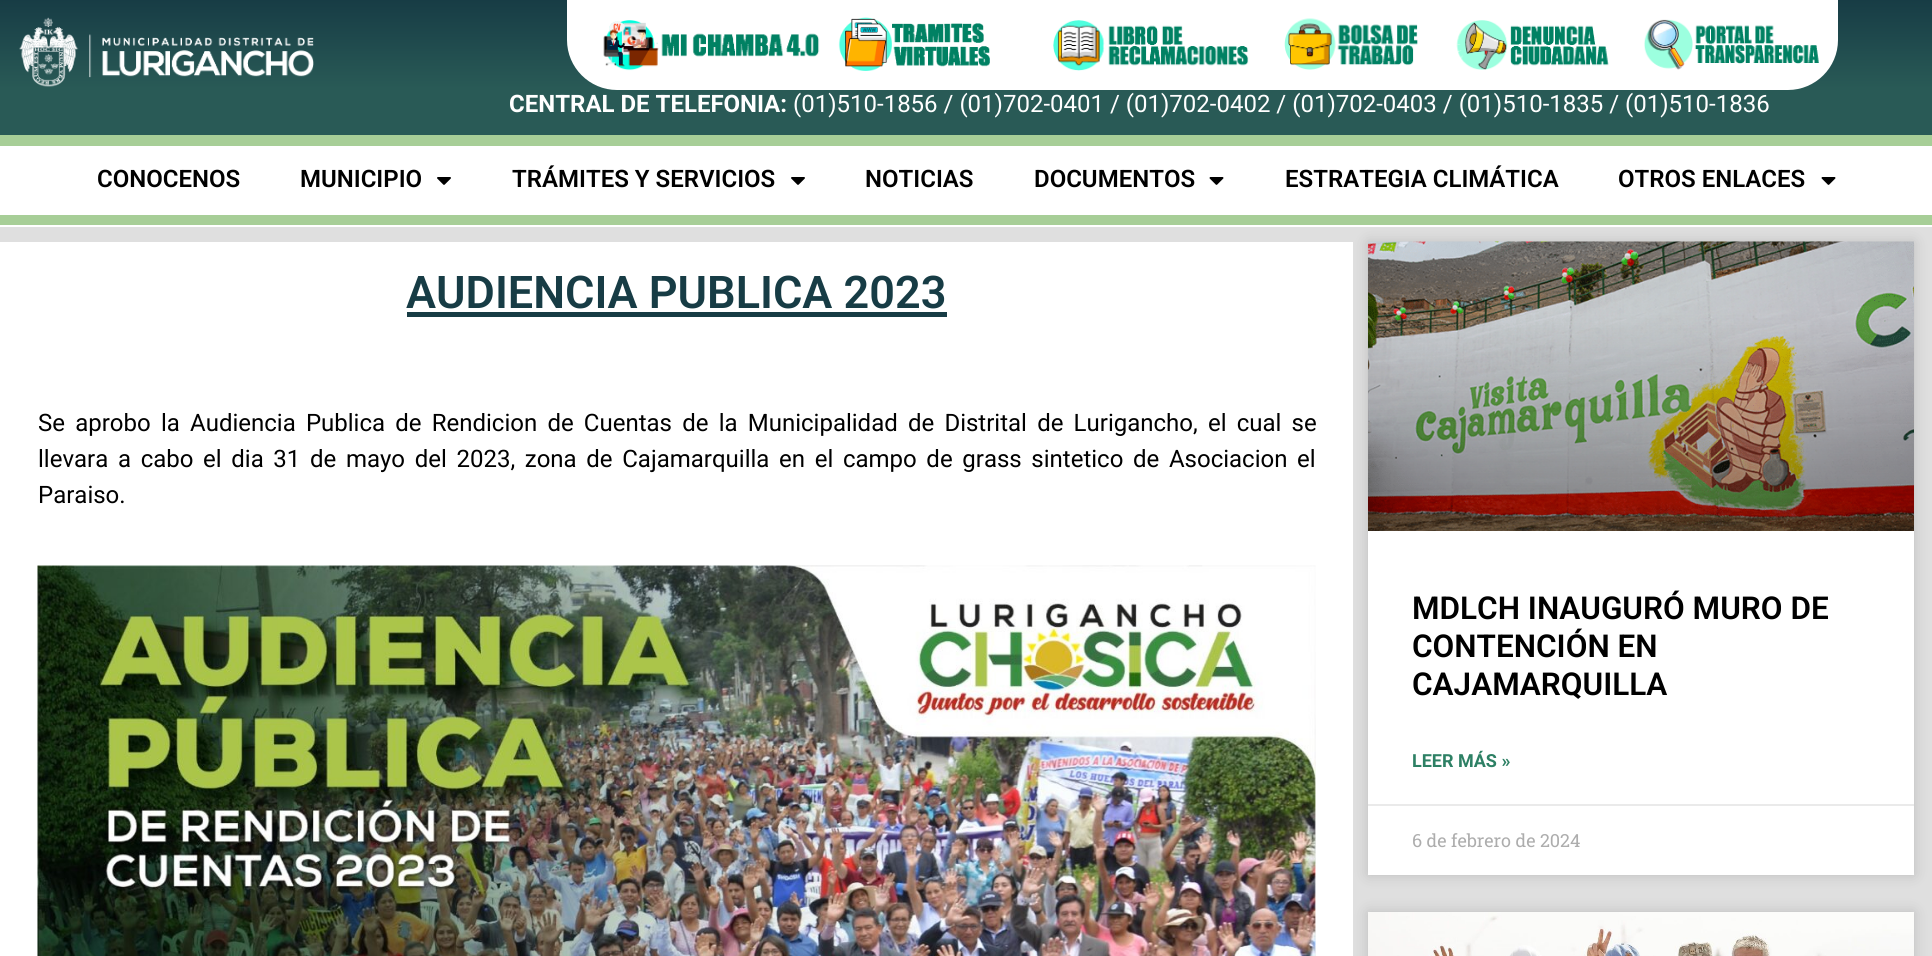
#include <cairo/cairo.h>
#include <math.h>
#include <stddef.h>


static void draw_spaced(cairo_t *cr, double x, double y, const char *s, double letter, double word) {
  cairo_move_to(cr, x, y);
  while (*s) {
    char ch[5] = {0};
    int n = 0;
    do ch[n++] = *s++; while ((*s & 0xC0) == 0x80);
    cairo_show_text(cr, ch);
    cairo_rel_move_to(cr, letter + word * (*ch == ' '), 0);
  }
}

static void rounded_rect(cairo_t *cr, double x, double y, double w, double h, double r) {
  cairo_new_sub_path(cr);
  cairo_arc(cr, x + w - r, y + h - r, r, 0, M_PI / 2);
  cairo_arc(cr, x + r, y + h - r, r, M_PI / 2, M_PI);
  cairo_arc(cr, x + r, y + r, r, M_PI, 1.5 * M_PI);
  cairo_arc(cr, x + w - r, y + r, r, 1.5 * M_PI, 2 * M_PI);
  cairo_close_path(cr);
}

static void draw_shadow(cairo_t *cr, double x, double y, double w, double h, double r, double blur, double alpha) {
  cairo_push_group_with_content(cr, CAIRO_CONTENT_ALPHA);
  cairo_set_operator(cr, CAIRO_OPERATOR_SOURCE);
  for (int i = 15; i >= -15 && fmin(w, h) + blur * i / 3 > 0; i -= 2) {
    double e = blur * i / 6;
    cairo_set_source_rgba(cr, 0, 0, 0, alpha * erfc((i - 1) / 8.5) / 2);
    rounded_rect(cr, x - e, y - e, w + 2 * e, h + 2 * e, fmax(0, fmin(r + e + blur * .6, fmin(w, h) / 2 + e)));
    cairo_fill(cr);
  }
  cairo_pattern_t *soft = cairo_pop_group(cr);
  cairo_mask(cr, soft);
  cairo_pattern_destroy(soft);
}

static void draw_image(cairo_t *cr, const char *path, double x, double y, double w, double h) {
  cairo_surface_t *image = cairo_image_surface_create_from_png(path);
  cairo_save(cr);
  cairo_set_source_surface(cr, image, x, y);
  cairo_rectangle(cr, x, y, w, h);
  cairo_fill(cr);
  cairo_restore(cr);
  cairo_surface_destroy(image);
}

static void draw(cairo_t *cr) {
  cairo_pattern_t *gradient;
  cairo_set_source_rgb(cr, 1, 1, 1);
  cairo_paint(cr);
  gradient = cairo_pattern_create_linear(966, 0, 966, 105);
  cairo_pattern_add_color_stop_rgba(gradient, 0, 23 / 255.0, 60 / 255.0, 69 / 255.0, 1);
  cairo_pattern_add_color_stop_rgba(gradient, 0.84, 41 / 255.0, 90 / 255.0, 86 / 255.0, 1);
  cairo_set_source(cr, gradient);
  cairo_pattern_destroy(gradient);
  cairo_rectangle(cr, 0, 0, 1932, 105);
  cairo_fill(cr);
  draw_image(cr, "images/1.png", 19, 17, 295, 70);
  cairo_set_source_rgb(cr, 1, 1, 1);
  cairo_new_path(cr);
  cairo_move_to(cr, 567, 0);
  cairo_line_to(cr, 837, 0);
  cairo_line_to(cr, 837, 90);
  cairo_line_to(cr, 617, 90);
  cairo_curve_to(cr, 589.5, 90, 567, 67.5, 567, 40);
  cairo_close_path(cr);
  cairo_fill(cr);
  draw_image(cr, "images/2.png", 603, 20, 217, 51);
  cairo_rectangle(cr, 837, 0, 789, 90);
  cairo_fill(cr);
  draw_image(cr, "images/3.png", 838, 17, 152, 54);
  cairo_new_path(cr);
  cairo_move_to(cr, 1626, 0);
  cairo_line_to(cr, 1838, 0);
  cairo_line_to(cr, 1838, 40);
  cairo_curve_to(cr, 1838, 67.5, 1815.5, 90, 1788, 90);
  cairo_line_to(cr, 1626, 90);
  cairo_close_path(cr);
  cairo_fill(cr);
  draw_image(cr, "images/4.png", 1644, 19, 175, 51);
  draw_image(cr, "images/5.png", 1053, 20, 196, 51);
  draw_image(cr, "images/6.png", 1284, 18, 134, 52);
  draw_image(cr, "images/7.png", 1456, 20, 153, 50);
  cairo_set_source_rgb(cr, 41 / 255.0, 90 / 255.0, 86 / 255.0);
  cairo_rectangle(cr, 0, 105, 1932, 30);
  cairo_fill(cr);
  cairo_set_source_rgb(cr, 167 / 255.0, 206 / 255.0, 151 / 255.0);
  cairo_rectangle(cr, 0, 135, 1932, 11);
  cairo_fill(cr);
  cairo_rectangle(cr, 0, 215, 1932, 10);
  cairo_fill(cr);
  draw_image(cr, "images/8.png", 437, 177, 14, 8);
  draw_image(cr, "images/8.png", 791, 177, 14, 8);
  draw_image(cr, "images/9.png", 1209, 177, 15, 8);
  draw_image(cr, "images/9.png", 1821, 177, 15, 8);
  cairo_set_source_rgb(cr, 223 / 255.0, 223 / 255.0, 223 / 255.0);
  cairo_rectangle(cr, 0, 227, 1932, 729);
  cairo_fill(cr);
  cairo_set_source_rgb(cr, 1, 1, 1);
  cairo_rectangle(cr, 0, 242, 1353, 714);
  cairo_fill(cr);
  cairo_set_source_rgb(cr, 23 / 255.0, 60 / 255.0, 69 / 255.0);
  cairo_rectangle(cr, 407, 312, 540, 5);
  cairo_fill(cr);
  draw_image(cr, "images/10.png", 37, 565, 1279, 391);
  cairo_set_source_rgb(cr, 0, 0, 0);
  draw_shadow(cr, 1368, 242, 546, 633, 0, 7.5, 0.15);
  cairo_set_source_rgb(cr, 1, 1, 1);
  cairo_rectangle(cr, 1368, 531, 546, 344);
  cairo_fill(cr);
  draw_image(cr, "images/11.png", 1368, 241, 546, 290);
  cairo_set_source_rgb(cr, 234 / 255.0, 234 / 255.0, 234 / 255.0);
  cairo_rectangle(cr, 1368, 804, 546, 2);
  cairo_fill(cr);
  cairo_set_source_rgb(cr, 0, 0, 0);
  draw_shadow(cr, 1368, 912, 546, 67, 0, 7.5, 0.15);
  draw_image(cr, "images/12.png", 1368, 912, 546, 44);
  cairo_select_font_face(cr, "Roboto", CAIRO_FONT_SLANT_NORMAL, CAIRO_FONT_WEIGHT_BOLD);
  cairo_set_font_size(cr, 24);
  cairo_set_source_rgb(cr, 1, 1, 1);
  cairo_move_to(cr, 509, 112);
  cairo_show_text(cr, "CENTRAL DE TELEFONIA:");
  cairo_select_font_face(cr, "Roboto", CAIRO_FONT_SLANT_NORMAL, CAIRO_FONT_WEIGHT_NORMAL);
  cairo_move_to(cr, 793, 112);
  cairo_show_text(cr, "(01)510-1856 / (01)702-0401 / (01)702-0402 / (01)702-0403 / (01)510-1835 / (01)510-1836");
  cairo_select_font_face(cr, "Roboto SemiBold", CAIRO_FONT_SLANT_NORMAL, CAIRO_FONT_WEIGHT_NORMAL);
  cairo_set_source_rgb(cr, 0, 0, 0);
  cairo_move_to(cr, 97, 187);
  cairo_show_text(cr, "CONOCENOS");
  cairo_move_to(cr, 300, 187);
  cairo_show_text(cr, "MUNICIPIO");
  cairo_move_to(cr, 512, 187);
  cairo_show_text(cr, "TRÁMITES Y SERVICIOS");
  cairo_move_to(cr, 865, 187);
  cairo_show_text(cr, "NOTICIAS");
  cairo_move_to(cr, 1034, 187);
  cairo_show_text(cr, "DOCUMENTOS");
  cairo_move_to(cr, 1285, 187);
  cairo_show_text(cr, "ESTRATEGIA CLIMÁTICA");
  cairo_move_to(cr, 1618, 187);
  cairo_show_text(cr, "OTROS ENLACES");
  cairo_set_font_size(cr, 45);
  cairo_set_source_rgb(cr, 23 / 255.0, 60 / 255.0, 69 / 255.0);
  cairo_move_to(cr, 406, 308);
  cairo_show_text(cr, "AUDIENCIA PUBLICA 2023");
  cairo_select_font_face(cr, "Roboto", CAIRO_FONT_SLANT_NORMAL, CAIRO_FONT_WEIGHT_NORMAL);
  cairo_set_font_size(cr, 24);
  cairo_set_source_rgb(cr, 0, 0, 0);
  draw_spaced(cr, 38, 431, "Se aprobo la Audiencia Publica de Rendicion de Cuentas de la Municipalidad de Distrital de Lurigancho, el cual se", 0, 4.25);
  draw_spaced(cr, 38, 467, "llevara a cabo el dia 31 de mayo del 2023, zona de Cajamarquilla en el campo de grass sintetico de Asociacion el", 0, 3.7);
  cairo_move_to(cr, 38, 503);
  cairo_show_text(cr, "Paraiso.");
  cairo_select_font_face(cr, "Roboto SemiBold", CAIRO_FONT_SLANT_NORMAL, CAIRO_FONT_WEIGHT_NORMAL);
  cairo_set_font_size(cr, 31.5);
  cairo_move_to(cr, 1412, 619);
  cairo_show_text(cr, "MDLCH INAUGURÓ MURO DE");
  cairo_move_to(cr, 1412, 657);
  cairo_show_text(cr, "CONTENCIÓN EN");
  cairo_move_to(cr, 1412, 695);
  cairo_show_text(cr, "CAJAMARQUILLA");
  cairo_select_font_face(cr, "Roboto", CAIRO_FONT_SLANT_NORMAL, CAIRO_FONT_WEIGHT_BOLD);
  cairo_set_font_size(cr, 18);
  cairo_set_source_rgb(cr, 45 / 255.0, 128 / 255.0, 100 / 255.0);
  cairo_move_to(cr, 1412, 767);
  cairo_show_text(cr, "LEER MÁS »");
  cairo_select_font_face(cr, "Roboto Slab", CAIRO_FONT_SLANT_NORMAL, CAIRO_FONT_WEIGHT_NORMAL);
  cairo_set_source_rgb(cr, 173 / 255.0, 173 / 255.0, 173 / 255.0);
  cairo_move_to(cr, 1412, 847);
  cairo_show_text(cr, "6 de febrero de 2024");
}

int main(void) {
  cairo_surface_t *surface = cairo_image_surface_create(CAIRO_FORMAT_RGB24, 1932, 956);
  cairo_t *cr = cairo_create(surface);
  cairo_font_options_t *options = cairo_font_options_create();
  cairo_font_options_set_hint_metrics(options, CAIRO_HINT_METRICS_OFF);
  cairo_font_options_set_hint_style(options, CAIRO_HINT_STYLE_NONE);
  cairo_set_font_options(cr, options);
  cairo_set_miter_limit(cr, 4);
  draw(cr);
  cairo_surface_write_to_png(surface, "out.png");
  cairo_font_options_destroy(options);
  cairo_destroy(cr);
  cairo_surface_destroy(surface);
  return 0;
}
